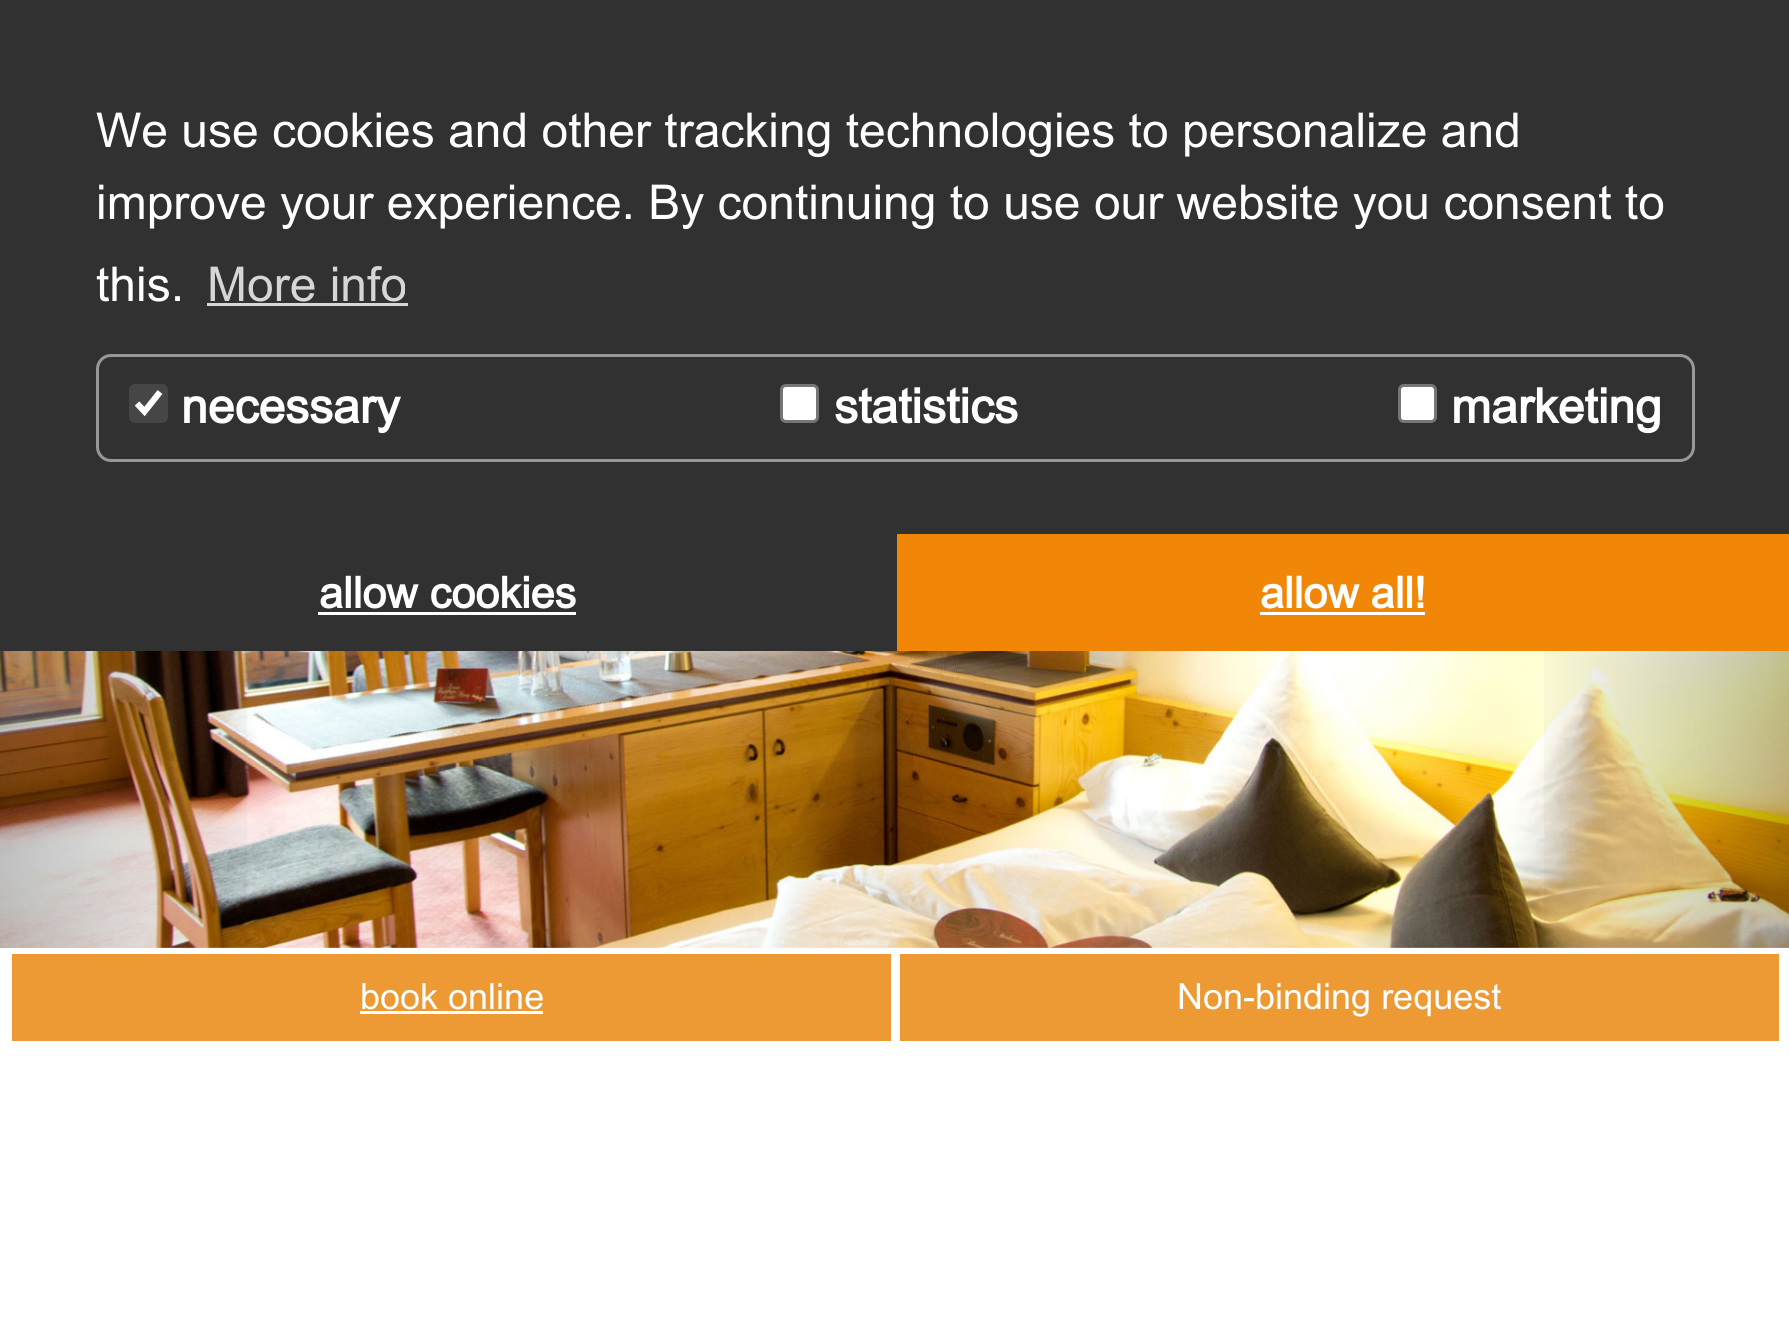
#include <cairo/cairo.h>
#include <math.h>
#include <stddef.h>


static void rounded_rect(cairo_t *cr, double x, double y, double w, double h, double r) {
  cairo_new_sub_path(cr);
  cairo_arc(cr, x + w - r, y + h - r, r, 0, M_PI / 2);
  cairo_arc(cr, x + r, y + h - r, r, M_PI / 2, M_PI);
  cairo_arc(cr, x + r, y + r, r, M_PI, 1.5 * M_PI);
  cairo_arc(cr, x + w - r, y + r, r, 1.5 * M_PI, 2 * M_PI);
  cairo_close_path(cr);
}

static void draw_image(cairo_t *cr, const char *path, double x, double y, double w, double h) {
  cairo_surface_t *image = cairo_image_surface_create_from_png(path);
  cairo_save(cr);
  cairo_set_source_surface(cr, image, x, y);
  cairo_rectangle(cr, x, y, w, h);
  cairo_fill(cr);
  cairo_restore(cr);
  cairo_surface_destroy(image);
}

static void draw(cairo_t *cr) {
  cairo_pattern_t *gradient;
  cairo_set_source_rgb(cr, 1, 1, 1);
  cairo_paint(cr);
  cairo_set_source_rgb(cr, 48 / 255.0, 49 / 255.0, 48 / 255.0);
  cairo_rectangle(cr, 0, 0, 1789, 651);
  cairo_fill(cr);
  cairo_set_source_rgb(cr, 214 / 255.0, 214 / 255.0, 214 / 255.0);
  cairo_rectangle(cr, 207, 303, 201, 3);
  cairo_fill(cr);
  rounded_rect(cr, 97.5, 355.5, 1596, 105, 13.5);
  cairo_set_source_rgb(cr, 152 / 255.0, 152 / 255.0, 152 / 255.0);
  cairo_set_line_width(cr, 3);
  cairo_stroke(cr);
  cairo_set_source_rgb(cr, 69 / 255.0, 70 / 255.0, 69 / 255.0);
  rounded_rect(cr, 129, 384, 39, 39, 6);
  cairo_fill(cr);
  cairo_new_path(cr);
  cairo_move_to(cr, 137, 403.5);
  cairo_line_to(cr, 144.5, 411.5);
  cairo_line_to(cr, 160, 392);
  cairo_set_source_rgb(cr, 1, 1, 1);
  cairo_set_line_width(cr, 6.2);
  cairo_stroke(cr);
  rounded_rect(cr, 781.5, 385.5, 36, 36, 4.5);
  cairo_fill_preserve(cr);
  cairo_set_source_rgb(cr, 118 / 255.0, 118 / 255.0, 118 / 255.0);
  cairo_set_line_width(cr, 3);
  cairo_stroke(cr);
  cairo_set_source_rgb(cr, 1, 1, 1);
  rounded_rect(cr, 1399.5, 385.5, 36, 36, 4.5);
  cairo_fill_preserve(cr);
  cairo_set_source_rgb(cr, 118 / 255.0, 118 / 255.0, 118 / 255.0);
  cairo_stroke(cr);
  cairo_set_source_rgb(cr, 1, 1, 1);
  cairo_rectangle(cr, 318, 612, 258, 3);
  cairo_fill(cr);
  cairo_set_source_rgb(cr, 242 / 255.0, 135 / 255.0, 7 / 255.0);
  cairo_rectangle(cr, 897, 534, 892, 117);
  cairo_fill(cr);
  cairo_set_source_rgb(cr, 1, 1, 1);
  cairo_rectangle(cr, 1260, 612, 165, 3);
  cairo_fill(cr);
  draw_image(cr, "images/1.png", 0, 651, 1789, 297);
  gradient = cairo_pattern_create_linear(0, 623, 270, 623);
  cairo_pattern_add_color_stop_rgba(gradient, 0, 0, 0, 0, 0.25);
  cairo_pattern_add_color_stop_rgba(gradient, 1, 0, 0, 0, 0);
  cairo_set_source(cr, gradient);
  cairo_pattern_destroy(gradient);
  cairo_rectangle(cr, 0, 651, 247, 297);
  cairo_fill(cr);
  gradient = cairo_pattern_create_linear(1521, 623, 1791, 623);
  cairo_pattern_add_color_stop_rgba(gradient, 0, 0, 0, 0, 0);
  cairo_pattern_add_color_stop_rgba(gradient, 1, 0, 0, 0, 0.25);
  cairo_set_source(cr, gradient);
  cairo_pattern_destroy(gradient);
  cairo_rectangle(cr, 1544, 651, 245, 297);
  cairo_fill(cr);
  cairo_set_source_rgb(cr, 237 / 255.0, 154 / 255.0, 52 / 255.0);
  cairo_rectangle(cr, 12, 954, 879, 87);
  cairo_fill(cr);
  cairo_set_source_rgb(cr, 1, 1, 1);
  cairo_rectangle(cr, 360, 1011, 183, 3);
  cairo_fill(cr);
  cairo_set_source_rgb(cr, 237 / 255.0, 154 / 255.0, 52 / 255.0);
  cairo_rectangle(cr, 900, 954, 879, 87);
  cairo_fill(cr);
  cairo_select_font_face(cr, "Arial", CAIRO_FONT_SLANT_NORMAL, CAIRO_FONT_WEIGHT_NORMAL);
  cairo_set_font_size(cr, 48);
  cairo_set_source_rgb(cr, 1, 1, 1);
  cairo_move_to(cr, 96, 147);
  cairo_show_text(cr, "We use cookies and other tracking technologies to personalize and");
  cairo_move_to(cr, 96, 219);
  cairo_show_text(cr, "improve your experience. By continuing to use our website you consent to");
  cairo_move_to(cr, 96, 301);
  cairo_show_text(cr, "this.");
  cairo_set_source_rgb(cr, 214 / 255.0, 214 / 255.0, 214 / 255.0);
  cairo_move_to(cr, 207, 301);
  cairo_show_text(cr, "More info");
  cairo_select_font_face(cr, "Arial", CAIRO_FONT_SLANT_NORMAL, CAIRO_FONT_WEIGHT_BOLD);
  cairo_set_source_rgb(cr, 1, 1, 1);
  cairo_move_to(cr, 181, 423);
  cairo_show_text(cr, "necessary");
  cairo_move_to(cr, 834, 423);
  cairo_show_text(cr, "statistics");
  cairo_move_to(cr, 1451, 423);
  cairo_show_text(cr, "marketing");
  cairo_set_font_size(cr, 43.25);
  cairo_move_to(cr, 319, 608);
  cairo_show_text(cr, "allow cookies");
  cairo_move_to(cr, 1260, 608);
  cairo_show_text(cr, "allow all!");
  cairo_select_font_face(cr, "Arial", CAIRO_FONT_SLANT_NORMAL, CAIRO_FONT_WEIGHT_NORMAL);
  cairo_set_font_size(cr, 36);
  cairo_move_to(cr, 360, 1009);
  cairo_show_text(cr, "book online");
  cairo_move_to(cr, 1177, 1009);
  cairo_show_text(cr, "Non-binding request");
}

int main(void) {
  cairo_surface_t *surface = cairo_image_surface_create(CAIRO_FORMAT_RGB24, 1789, 1327);
  cairo_t *cr = cairo_create(surface);
  cairo_font_options_t *options = cairo_font_options_create();
  cairo_font_options_set_hint_metrics(options, CAIRO_HINT_METRICS_OFF);
  cairo_font_options_set_hint_style(options, CAIRO_HINT_STYLE_NONE);
  cairo_set_font_options(cr, options);
  cairo_set_miter_limit(cr, 4);
  draw(cr);
  cairo_surface_write_to_png(surface, "out.png");
  cairo_font_options_destroy(options);
  cairo_destroy(cr);
  cairo_surface_destroy(surface);
  return 0;
}
